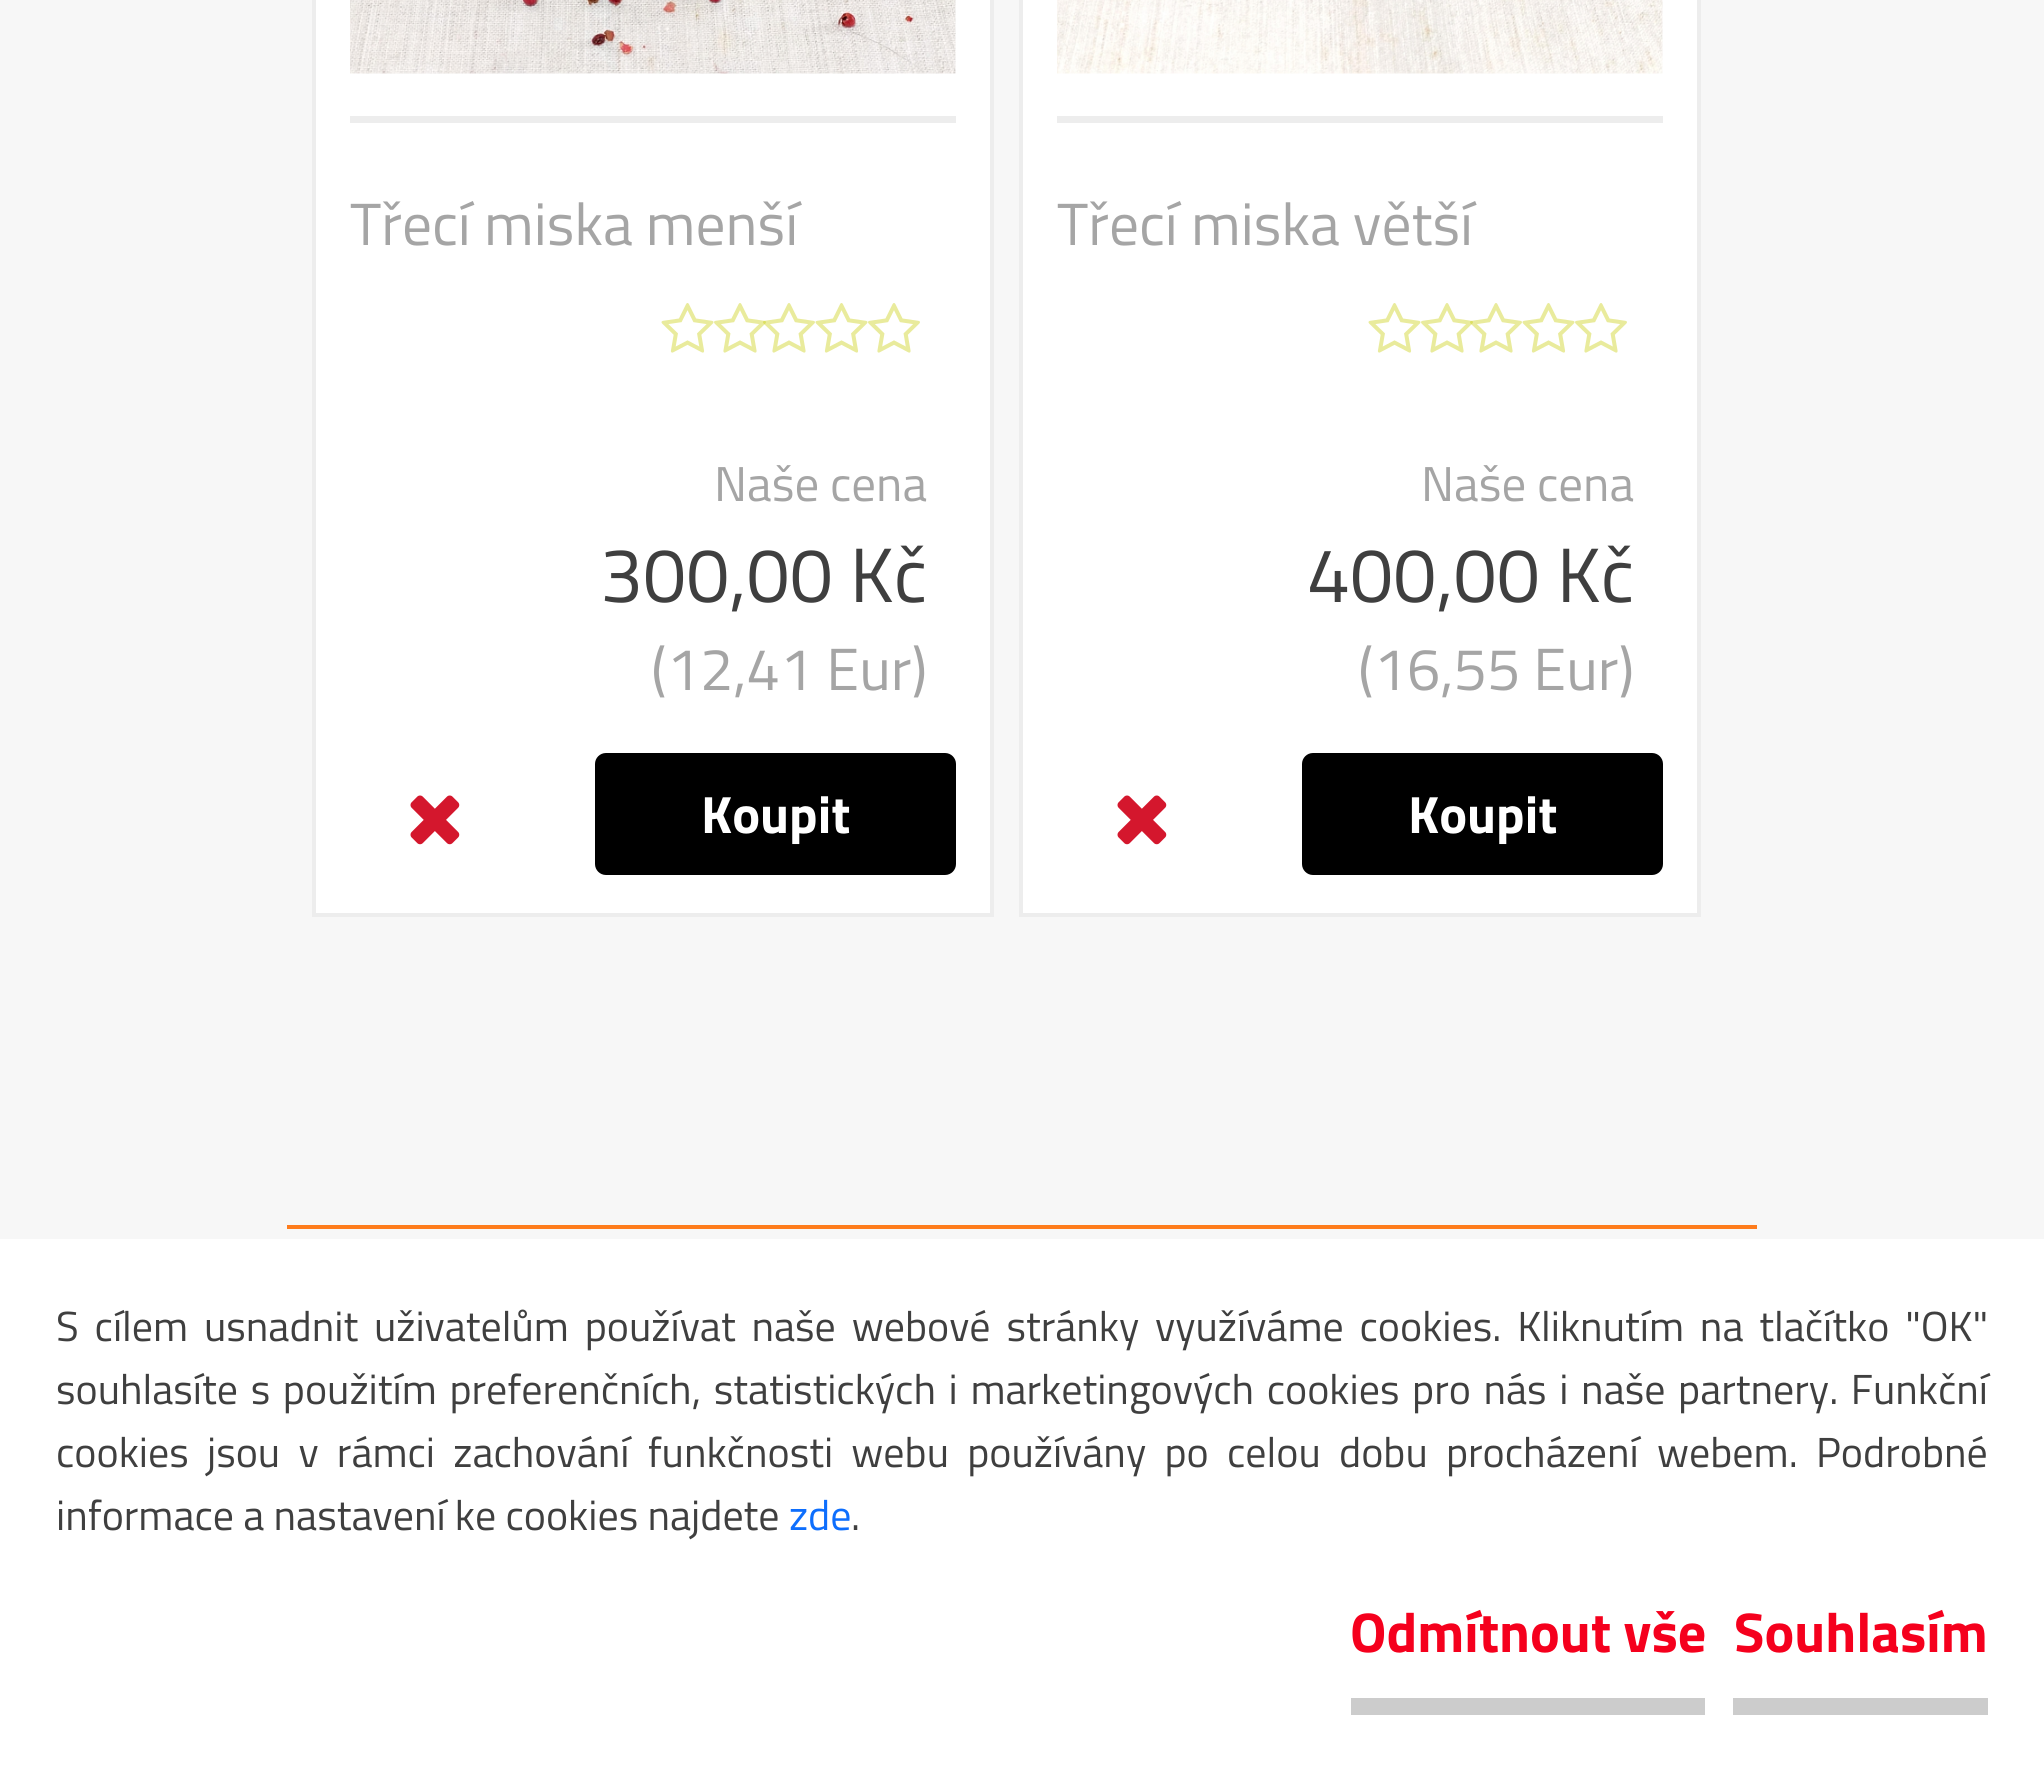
#include <cairo/cairo.h>
#include <math.h>
#include <stddef.h>


static void draw_spaced(cairo_t *cr, double x, double y, const char *s, double letter, double word) {
  cairo_move_to(cr, x, y);
  while (*s) {
    char ch[5] = {0};
    int n = 0;
    do ch[n++] = *s++; while ((*s & 0xC0) == 0x80);
    cairo_show_text(cr, ch);
    cairo_rel_move_to(cr, letter + word * (*ch == ' '), 0);
  }
}

static void rounded_rect(cairo_t *cr, double x, double y, double w, double h, double r) {
  cairo_new_sub_path(cr);
  cairo_arc(cr, x + w - r, y + h - r, r, 0, M_PI / 2);
  cairo_arc(cr, x + r, y + h - r, r, M_PI / 2, M_PI);
  cairo_arc(cr, x + r, y + r, r, M_PI, 1.5 * M_PI);
  cairo_arc(cr, x + w - r, y + r, r, 1.5 * M_PI, 2 * M_PI);
  cairo_close_path(cr);
}

static void draw_image(cairo_t *cr, const char *path, double x, double y, double w, double h) {
  cairo_surface_t *image = cairo_image_surface_create_from_png(path);
  cairo_save(cr);
  cairo_set_source_surface(cr, image, x, y);
  cairo_rectangle(cr, x, y, w, h);
  cairo_fill(cr);
  cairo_restore(cr);
  cairo_surface_destroy(image);
}

static void draw(cairo_t *cr) {
  cairo_set_source_rgb(cr, 247 / 255.0, 247 / 255.0, 247 / 255.0);
  cairo_paint(cr);
  cairo_set_source_rgb(cr, 1, 1, 1);
  cairo_rectangle(cr, 0, 1239, 2044, 529);
  cairo_fill(cr);
  cairo_rectangle(cr, 314, -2, 678, 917);
  cairo_fill_preserve(cr);
  cairo_set_source_rgb(cr, 237 / 255.0, 237 / 255.0, 237 / 255.0);
  cairo_set_line_width(cr, 4);
  cairo_stroke(cr);
  cairo_rectangle(cr, 350, 116, 606, 7);
  cairo_fill(cr);
  draw_image(cr, "images/1.png", 350, 0, 606, 74);
  draw_image(cr, "images/2.png", 661, 303, 53, 50);
  draw_image(cr, "images/3.png", 714, 303, 52, 50);
  draw_image(cr, "images/4.png", 763, 303, 52, 50);
  draw_image(cr, "images/2.png", 815, 303, 53, 50);
  draw_image(cr, "images/3.png", 868, 303, 52, 50);
  draw_image(cr, "images/5.png", 410, 795, 50, 50);
  cairo_set_source_rgb(cr, 0, 0, 0);
  rounded_rect(cr, 595, 753, 361, 122, 11);
  cairo_fill(cr);
  cairo_set_source_rgb(cr, 1, 1, 1);
  cairo_rectangle(cr, 1021, -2, 678, 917);
  cairo_fill_preserve(cr);
  cairo_set_source_rgb(cr, 237 / 255.0, 237 / 255.0, 237 / 255.0);
  cairo_stroke(cr);
  cairo_rectangle(cr, 1057, 116, 606, 7);
  cairo_fill(cr);
  draw_image(cr, "images/6.png", 1057, 0, 606, 74);
  draw_image(cr, "images/2.png", 1368, 303, 53, 50);
  draw_image(cr, "images/3.png", 1421, 303, 52, 50);
  draw_image(cr, "images/4.png", 1470, 303, 52, 50);
  draw_image(cr, "images/2.png", 1522, 303, 53, 50);
  draw_image(cr, "images/3.png", 1575, 303, 52, 50);
  draw_image(cr, "images/5.png", 1117, 795, 50, 50);
  cairo_set_source_rgb(cr, 0, 0, 0);
  rounded_rect(cr, 1302, 753, 361, 122, 11);
  cairo_fill(cr);
  cairo_set_source_rgb(cr, 254 / 255.0, 124 / 255.0, 28 / 255.0);
  cairo_rectangle(cr, 287, 1225, 1470, 4);
  cairo_fill(cr);
  cairo_set_source_rgb(cr, 204 / 255.0, 204 / 255.0, 204 / 255.0);
  cairo_rectangle(cr, 1351, 1698, 354, 17);
  cairo_fill(cr);
  cairo_rectangle(cr, 1733, 1698, 255, 17);
  cairo_fill(cr);
  cairo_select_font_face(cr, "Titillium Web", CAIRO_FONT_SLANT_NORMAL, CAIRO_FONT_WEIGHT_NORMAL);
  cairo_set_font_size(cr, 59.5);
  cairo_set_source_rgb(cr, 165 / 255.0, 165 / 255.0, 165 / 255.0);
  cairo_move_to(cr, 350, 245);
  cairo_show_text(cr, "Třecí miska menší");
  cairo_set_font_size(cr, 49);
  cairo_move_to(cr, 714, 501);
  cairo_show_text(cr, "Naše cena");
  cairo_set_font_size(cr, 77);
  cairo_set_source_rgb(cr, 63 / 255.0, 63 / 255.0, 63 / 255.0);
  cairo_move_to(cr, 600, 602);
  cairo_show_text(cr, "300,00 Kč");
  cairo_set_font_size(cr, 59.5);
  cairo_set_source_rgb(cr, 165 / 255.0, 165 / 255.0, 165 / 255.0);
  cairo_move_to(cr, 651, 690);
  cairo_show_text(cr, "(12,41 Eur)");
  cairo_select_font_face(cr, "Titillium Web", CAIRO_FONT_SLANT_NORMAL, CAIRO_FONT_WEIGHT_BOLD);
  cairo_set_font_size(cr, 52.5);
  cairo_set_source_rgb(cr, 1, 1, 1);
  cairo_move_to(cr, 701, 833);
  cairo_show_text(cr, "Koupit");
  cairo_select_font_face(cr, "Titillium Web", CAIRO_FONT_SLANT_NORMAL, CAIRO_FONT_WEIGHT_NORMAL);
  cairo_set_font_size(cr, 59.5);
  cairo_set_source_rgb(cr, 165 / 255.0, 165 / 255.0, 165 / 255.0);
  cairo_move_to(cr, 1057, 245);
  cairo_show_text(cr, "Třecí miska větší");
  cairo_set_font_size(cr, 49);
  cairo_move_to(cr, 1421, 501);
  cairo_show_text(cr, "Naše cena");
  cairo_set_font_size(cr, 77);
  cairo_set_source_rgb(cr, 63 / 255.0, 63 / 255.0, 63 / 255.0);
  cairo_move_to(cr, 1307, 602);
  cairo_show_text(cr, "400,00 Kč");
  cairo_set_font_size(cr, 59.5);
  cairo_set_source_rgb(cr, 165 / 255.0, 165 / 255.0, 165 / 255.0);
  cairo_move_to(cr, 1358, 690);
  cairo_show_text(cr, "(16,55 Eur)");
  cairo_select_font_face(cr, "Titillium Web", CAIRO_FONT_SLANT_NORMAL, CAIRO_FONT_WEIGHT_BOLD);
  cairo_set_font_size(cr, 52.5);
  cairo_set_source_rgb(cr, 1, 1, 1);
  cairo_move_to(cr, 1408, 833);
  cairo_show_text(cr, "Koupit");
  cairo_select_font_face(cr, "Titillium Web", CAIRO_FONT_SLANT_NORMAL, CAIRO_FONT_WEIGHT_NORMAL);
  cairo_set_font_size(cr, 42);
  cairo_set_source_rgb(cr, 63 / 255.0, 63 / 255.0, 63 / 255.0);
  draw_spaced(cr, 56, 1341, "S cílem usnadnit uživatelům používat naše webové stránky využíváme cookies. Kliknutím na tlačítko \"OK\"", 0, 6.6);
  draw_spaced(cr, 56, 1404, "souhlasíte s použitím preferenčních, statistických i marketingových cookies pro nás i naše partnery. Funkční", 0, 3.4);
  draw_spaced(cr, 56, 1467, "cookies jsou v rámci zachování funkčnosti webu používány po celou dobu procházení webem. Podrobné", 0, 9);
  cairo_move_to(cr, 56, 1530);
  cairo_show_text(cr, "informace a nastavení ke cookies najdete");
  cairo_set_source_rgb(cr, 13 / 255.0, 110 / 255.0, 253 / 255.0);
  cairo_move_to(cr, 789, 1530);
  cairo_show_text(cr, "zde");
  cairo_set_source_rgb(cr, 63 / 255.0, 63 / 255.0, 63 / 255.0);
  cairo_move_to(cr, 851, 1530);
  cairo_show_text(cr, ".");
  cairo_select_font_face(cr, "Titillium Web", CAIRO_FONT_SLANT_NORMAL, CAIRO_FONT_WEIGHT_BOLD);
  cairo_set_font_size(cr, 56);
  cairo_set_source_rgb(cr, 245 / 255.0, 0, 29 / 255.0);
  cairo_move_to(cr, 1350, 1652);
  cairo_show_text(cr, "Odmítnout vše");
  cairo_move_to(cr, 1734, 1652);
  cairo_show_text(cr, "Souhlasím");
}

int main(void) {
  cairo_surface_t *surface = cairo_image_surface_create(CAIRO_FORMAT_RGB24, 2044, 1768);
  cairo_t *cr = cairo_create(surface);
  cairo_font_options_t *options = cairo_font_options_create();
  cairo_font_options_set_hint_metrics(options, CAIRO_HINT_METRICS_OFF);
  cairo_font_options_set_hint_style(options, CAIRO_HINT_STYLE_NONE);
  cairo_set_font_options(cr, options);
  cairo_set_miter_limit(cr, 4);
  draw(cr);
  cairo_surface_write_to_png(surface, "out.png");
  cairo_font_options_destroy(options);
  cairo_destroy(cr);
  cairo_surface_destroy(surface);
  return 0;
}
